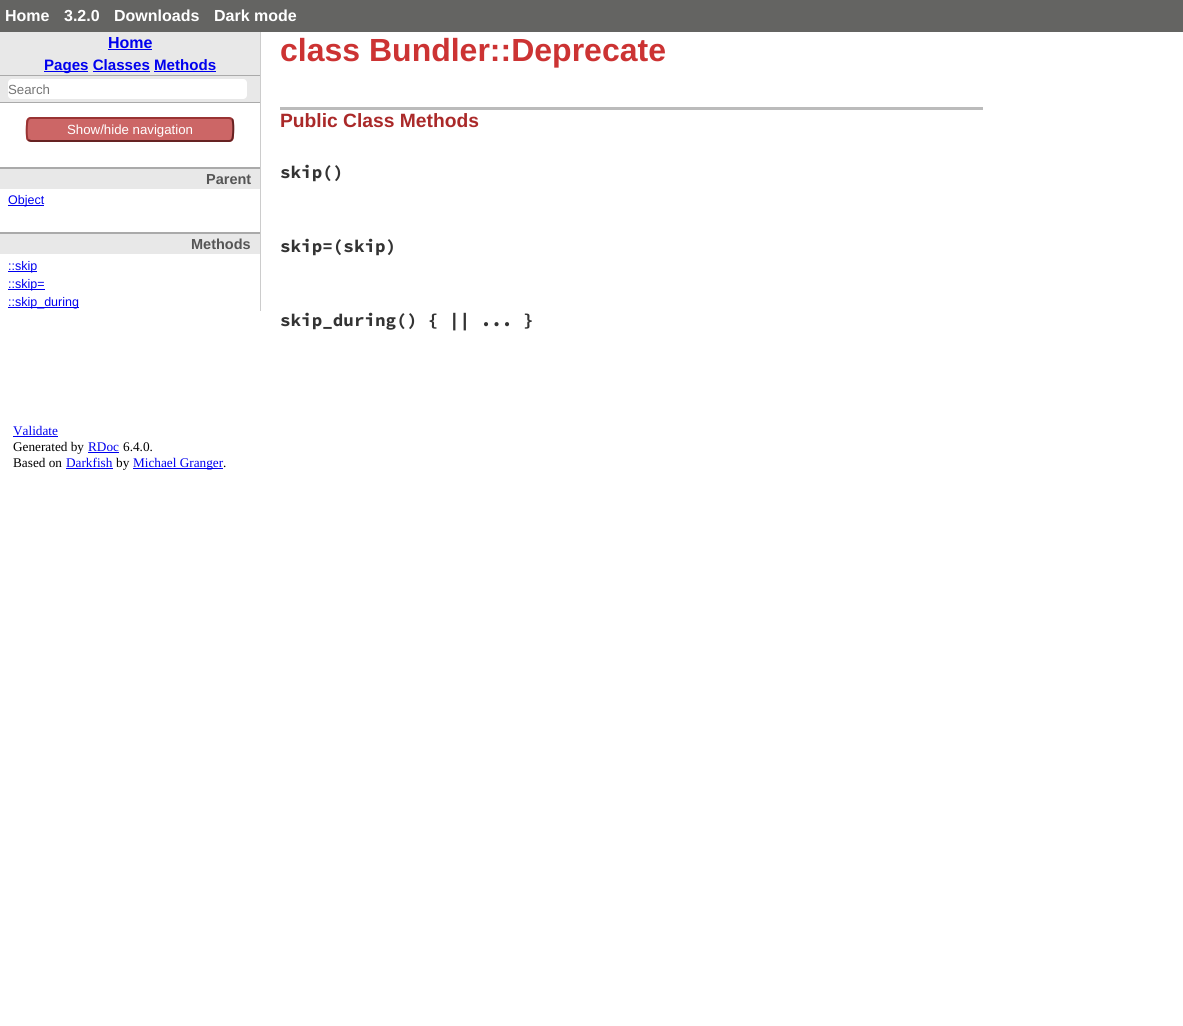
#include <cairo/cairo.h>
#include <math.h>
#include <stddef.h>


static void rounded_rect(cairo_t *cr, double x, double y, double w, double h, double r) {
  cairo_new_sub_path(cr);
  cairo_arc(cr, x + w - r, y + h - r, r, 0, M_PI / 2);
  cairo_arc(cr, x + r, y + h - r, r, M_PI / 2, M_PI);
  cairo_arc(cr, x + r, y + r, r, M_PI, 1.5 * M_PI);
  cairo_arc(cr, x + w - r, y + r, r, 1.5 * M_PI, 2 * M_PI);
  cairo_close_path(cr);
}

static void draw(cairo_t *cr) {
  cairo_set_source_rgb(cr, 1, 1, 1);
  cairo_paint(cr);
  cairo_set_source_rgb(cr, 100 / 255.0, 100 / 255.0, 98 / 255.0);
  cairo_rectangle(cr, 0, 0, 1183, 32);
  cairo_fill(cr);
  cairo_set_source_rgb(cr, 204 / 255.0, 204 / 255.0, 204 / 255.0);
  cairo_rectangle(cr, 260, 32, 1, 279);
  cairo_fill(cr);
  cairo_set_source_rgb(cr, 232 / 255.0, 232 / 255.0, 232 / 255.0);
  cairo_rectangle(cr, 0, 32, 260, 43);
  cairo_fill(cr);
  cairo_set_source_rgb(cr, 0, 0, 238 / 255.0);
  cairo_rectangle(cr, 108, 49, 44, 1);
  cairo_fill(cr);
  cairo_rectangle(cr, 44, 71, 44, 1);
  cairo_fill(cr);
  cairo_rectangle(cr, 93, 71, 57, 1);
  cairo_fill(cr);
  cairo_rectangle(cr, 154, 71, 62, 1);
  cairo_fill(cr);
  cairo_set_source_rgb(cr, 232 / 255.0, 232 / 255.0, 232 / 255.0);
  cairo_rectangle(cr, 0, 76, 260, 26);
  cairo_fill(cr);
  cairo_set_source_rgb(cr, 170 / 255.0, 170 / 255.0, 170 / 255.0);
  cairo_rectangle(cr, 0, 75, 260, 1);
  cairo_fill(cr);
  cairo_rectangle(cr, 0, 102, 260, 1);
  cairo_fill(cr);
  cairo_set_source_rgb(cr, 1, 1, 1);
  rounded_rect(cr, 8, 79, 239, 20, 4);
  cairo_fill(cr);
  cairo_set_source_rgb(cr, 204 / 255.0, 102 / 255.0, 102 / 255.0);
  rounded_rect(cr, 26, 117, 208, 25, 5);
  cairo_fill(cr);
  cairo_new_path(cr);
  cairo_move_to(cr, 232, 119);
  cairo_curve_to(cr, 234, 121, 233.5, 137.5, 232, 139.5);
  cairo_curve_to(cr, 231.5, 140.5, 230, 141, 229, 141);
  cairo_line_to(cr, 31, 141);
  cairo_line_to(cr, 28, 140);
  cairo_set_source_rgb(cr, 102 / 255.0, 34 / 255.0, 34 / 255.0);
  cairo_stroke(cr);
  cairo_new_path(cr);
  cairo_move_to(cr, 28, 140);
  cairo_curve_to(cr, 26, 138, 26.5, 121.5, 28, 119.5);
  cairo_curve_to(cr, 28.5, 118.5, 30, 118, 31, 118);
  cairo_line_to(cr, 229, 118);
  cairo_line_to(cr, 232, 119);
  cairo_set_source_rgb(cr, 153 / 255.0, 51 / 255.0, 51 / 255.0);
  cairo_stroke(cr);
  cairo_set_source_rgb(cr, 170 / 255.0, 170 / 255.0, 170 / 255.0);
  cairo_rectangle(cr, 0, 167, 260, 2);
  cairo_fill(cr);
  cairo_set_source_rgb(cr, 232 / 255.0, 232 / 255.0, 232 / 255.0);
  cairo_rectangle(cr, 0, 169, 260, 20);
  cairo_fill(cr);
  cairo_set_source_rgb(cr, 0, 0, 238 / 255.0);
  cairo_rectangle(cr, 8, 205, 36, 1);
  cairo_fill(cr);
  cairo_set_source_rgb(cr, 170 / 255.0, 170 / 255.0, 170 / 255.0);
  cairo_rectangle(cr, 0, 232, 260, 2);
  cairo_fill(cr);
  cairo_set_source_rgb(cr, 232 / 255.0, 232 / 255.0, 232 / 255.0);
  cairo_rectangle(cr, 0, 234, 260, 20);
  cairo_fill(cr);
  cairo_set_source_rgb(cr, 0, 0, 238 / 255.0);
  cairo_rectangle(cr, 8, 271, 29, 1);
  cairo_fill(cr);
  cairo_rectangle(cr, 8, 289, 37, 1);
  cairo_fill(cr);
  cairo_rectangle(cr, 8, 307, 71, 1);
  cairo_fill(cr);
  cairo_set_source_rgb(cr, 187 / 255.0, 187 / 255.0, 187 / 255.0);
  cairo_rectangle(cr, 280, 107, 703, 3);
  cairo_fill(cr);
  cairo_set_source_rgb(cr, 0, 0, 238 / 255.0);
  cairo_rectangle(cr, 13, 436, 45, 1);
  cairo_fill(cr);
  cairo_rectangle(cr, 88, 452, 31, 1);
  cairo_fill(cr);
  cairo_rectangle(cr, 66, 468, 47, 1);
  cairo_fill(cr);
  cairo_rectangle(cr, 133, 468, 90, 1);
  cairo_fill(cr);
  cairo_select_font_face(cr, "Liberation Sans", CAIRO_FONT_SLANT_NORMAL, CAIRO_FONT_WEIGHT_BOLD);
  cairo_set_font_size(cr, 16);
  cairo_set_source_rgb(cr, 1, 1, 1);
  cairo_move_to(cr, 5, 21);
  cairo_show_text(cr, "Home");
  cairo_move_to(cr, 64, 21);
  cairo_show_text(cr, "3.2.0");
  cairo_move_to(cr, 114, 21);
  cairo_show_text(cr, "Downloads");
  cairo_move_to(cr, 214, 21);
  cairo_show_text(cr, "Dark mode");
  cairo_set_source_rgb(cr, 0, 0, 238 / 255.0);
  cairo_move_to(cr, 108, 48);
  cairo_show_text(cr, "Home");
  cairo_set_font_size(cr, 15.1);
  cairo_move_to(cr, 44, 70);
  cairo_show_text(cr, "Pages Classes Methods");
  cairo_select_font_face(cr, "Liberation Sans", CAIRO_FONT_SLANT_NORMAL, CAIRO_FONT_WEIGHT_NORMAL);
  cairo_set_font_size(cr, 13.25);
  cairo_set_source_rgb(cr, 117 / 255.0, 117 / 255.0, 117 / 255.0);
  cairo_move_to(cr, 8, 94);
  cairo_show_text(cr, "Search");
  cairo_set_source_rgb(cr, 1, 1, 1);
  cairo_move_to(cr, 67, 134);
  cairo_show_text(cr, "Show/hide navigation");
  cairo_select_font_face(cr, "Liberation Sans", CAIRO_FONT_SLANT_NORMAL, CAIRO_FONT_WEIGHT_BOLD);
  cairo_set_font_size(cr, 14.5);
  cairo_set_source_rgb(cr, 85 / 255.0, 85 / 255.0, 85 / 255.0);
  cairo_move_to(cr, 206, 184);
  cairo_show_text(cr, "Parent");
  cairo_select_font_face(cr, "Liberation Sans", CAIRO_FONT_SLANT_NORMAL, CAIRO_FONT_WEIGHT_NORMAL);
  cairo_set_font_size(cr, 12.5);
  cairo_set_source_rgb(cr, 0, 0, 238 / 255.0);
  cairo_move_to(cr, 8, 204);
  cairo_show_text(cr, "Object");
  cairo_select_font_face(cr, "Liberation Sans", CAIRO_FONT_SLANT_NORMAL, CAIRO_FONT_WEIGHT_BOLD);
  cairo_set_font_size(cr, 14.5);
  cairo_set_source_rgb(cr, 85 / 255.0, 85 / 255.0, 85 / 255.0);
  cairo_move_to(cr, 191, 249);
  cairo_show_text(cr, "Methods");
  cairo_select_font_face(cr, "Liberation Sans", CAIRO_FONT_SLANT_NORMAL, CAIRO_FONT_WEIGHT_NORMAL);
  cairo_set_font_size(cr, 12.5);
  cairo_set_source_rgb(cr, 0, 0, 238 / 255.0);
  cairo_move_to(cr, 8, 270);
  cairo_show_text(cr, "::skip");
  cairo_move_to(cr, 8, 288);
  cairo_show_text(cr, "::skip=");
  cairo_move_to(cr, 8, 306);
  cairo_show_text(cr, "::skip_during");
  cairo_select_font_face(cr, "Liberation Sans", CAIRO_FONT_SLANT_NORMAL, CAIRO_FONT_WEIGHT_BOLD);
  cairo_set_font_size(cr, 32);
  cairo_set_source_rgb(cr, 204 / 255.0, 51 / 255.0, 51 / 255.0);
  cairo_move_to(cr, 280, 61);
  cairo_show_text(cr, "class Bundler::Deprecate");
  cairo_set_font_size(cr, 19.25);
  cairo_set_source_rgb(cr, 170 / 255.0, 41 / 255.0, 41 / 255.0);
  cairo_move_to(cr, 280, 127);
  cairo_show_text(cr, "Public Class Methods");
  cairo_select_font_face(cr, "Source Code Pro", CAIRO_FONT_SLANT_NORMAL, CAIRO_FONT_WEIGHT_BOLD);
  cairo_set_font_size(cr, 17.6);
  cairo_set_source_rgb(cr, 51 / 255.0, 51 / 255.0, 51 / 255.0);
  cairo_move_to(cr, 280, 178);
  cairo_show_text(cr, "skip()");
  cairo_move_to(cr, 280, 252);
  cairo_show_text(cr, "skip=(skip)");
  cairo_move_to(cr, 280, 326);
  cairo_show_text(cr, "skip_during() { || ... }");
  cairo_select_font_face(cr, "Liberation Serif", CAIRO_FONT_SLANT_NORMAL, CAIRO_FONT_WEIGHT_NORMAL);
  cairo_set_font_size(cr, 13.25);
  cairo_set_source_rgb(cr, 0, 0, 238 / 255.0);
  cairo_move_to(cr, 13, 435);
  cairo_show_text(cr, "Validate");
  cairo_set_source_rgb(cr, 0, 0, 0);
  cairo_move_to(cr, 13, 451);
  cairo_show_text(cr, "Generated by");
  cairo_set_source_rgb(cr, 0, 0, 238 / 255.0);
  cairo_move_to(cr, 88, 451);
  cairo_show_text(cr, "RDoc");
  cairo_set_source_rgb(cr, 0, 0, 0);
  cairo_move_to(cr, 123, 451);
  cairo_show_text(cr, "6.4.0.");
  cairo_move_to(cr, 13, 467);
  cairo_show_text(cr, "Based on");
  cairo_set_source_rgb(cr, 0, 0, 238 / 255.0);
  cairo_move_to(cr, 66, 467);
  cairo_show_text(cr, "Darkfish");
  cairo_set_source_rgb(cr, 0, 0, 0);
  cairo_move_to(cr, 116, 467);
  cairo_show_text(cr, "by");
  cairo_set_source_rgb(cr, 0, 0, 238 / 255.0);
  cairo_move_to(cr, 133, 467);
  cairo_show_text(cr, "Michael Granger");
  cairo_set_source_rgb(cr, 0, 0, 0);
  cairo_move_to(cr, 223, 467);
  cairo_show_text(cr, ".");
}

int main(void) {
  cairo_surface_t *surface = cairo_image_surface_create(CAIRO_FORMAT_RGB24, 1183, 1026);
  cairo_t *cr = cairo_create(surface);
  cairo_font_options_t *options = cairo_font_options_create();
  cairo_font_options_set_hint_metrics(options, CAIRO_HINT_METRICS_OFF);
  cairo_font_options_set_hint_style(options, CAIRO_HINT_STYLE_NONE);
  cairo_set_font_options(cr, options);
  cairo_set_miter_limit(cr, 4);
  draw(cr);
  cairo_surface_write_to_png(surface, "out.png");
  cairo_font_options_destroy(options);
  cairo_destroy(cr);
  cairo_surface_destroy(surface);
  return 0;
}
